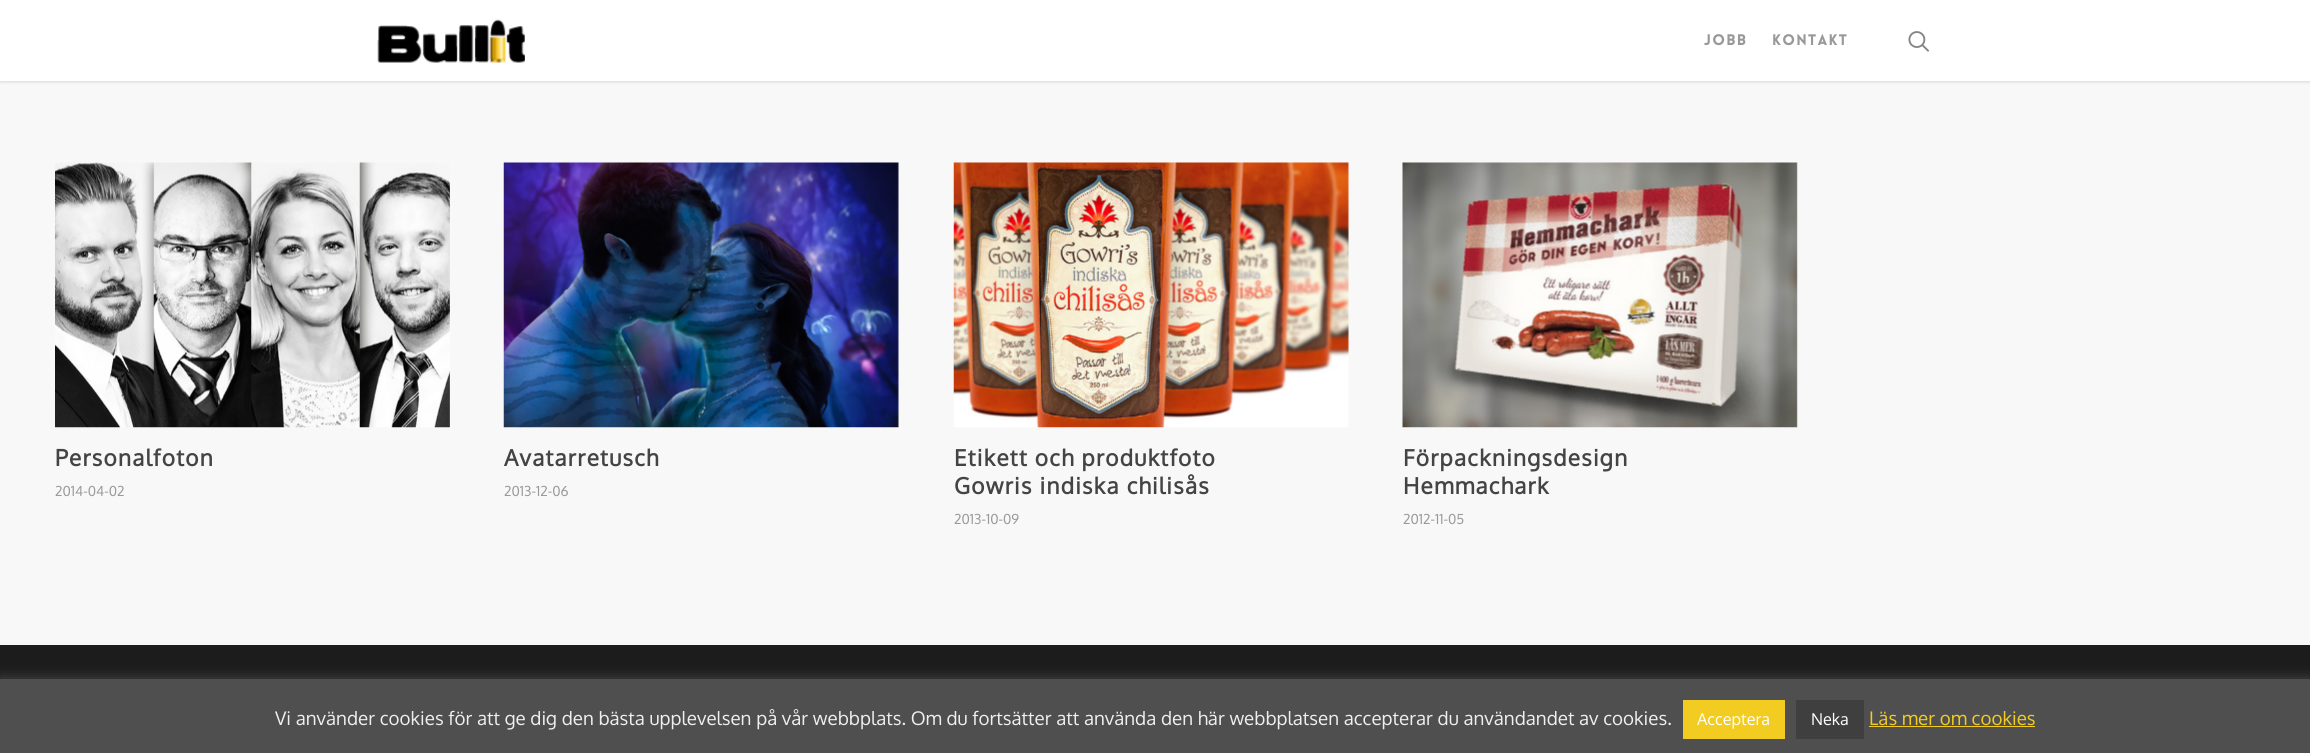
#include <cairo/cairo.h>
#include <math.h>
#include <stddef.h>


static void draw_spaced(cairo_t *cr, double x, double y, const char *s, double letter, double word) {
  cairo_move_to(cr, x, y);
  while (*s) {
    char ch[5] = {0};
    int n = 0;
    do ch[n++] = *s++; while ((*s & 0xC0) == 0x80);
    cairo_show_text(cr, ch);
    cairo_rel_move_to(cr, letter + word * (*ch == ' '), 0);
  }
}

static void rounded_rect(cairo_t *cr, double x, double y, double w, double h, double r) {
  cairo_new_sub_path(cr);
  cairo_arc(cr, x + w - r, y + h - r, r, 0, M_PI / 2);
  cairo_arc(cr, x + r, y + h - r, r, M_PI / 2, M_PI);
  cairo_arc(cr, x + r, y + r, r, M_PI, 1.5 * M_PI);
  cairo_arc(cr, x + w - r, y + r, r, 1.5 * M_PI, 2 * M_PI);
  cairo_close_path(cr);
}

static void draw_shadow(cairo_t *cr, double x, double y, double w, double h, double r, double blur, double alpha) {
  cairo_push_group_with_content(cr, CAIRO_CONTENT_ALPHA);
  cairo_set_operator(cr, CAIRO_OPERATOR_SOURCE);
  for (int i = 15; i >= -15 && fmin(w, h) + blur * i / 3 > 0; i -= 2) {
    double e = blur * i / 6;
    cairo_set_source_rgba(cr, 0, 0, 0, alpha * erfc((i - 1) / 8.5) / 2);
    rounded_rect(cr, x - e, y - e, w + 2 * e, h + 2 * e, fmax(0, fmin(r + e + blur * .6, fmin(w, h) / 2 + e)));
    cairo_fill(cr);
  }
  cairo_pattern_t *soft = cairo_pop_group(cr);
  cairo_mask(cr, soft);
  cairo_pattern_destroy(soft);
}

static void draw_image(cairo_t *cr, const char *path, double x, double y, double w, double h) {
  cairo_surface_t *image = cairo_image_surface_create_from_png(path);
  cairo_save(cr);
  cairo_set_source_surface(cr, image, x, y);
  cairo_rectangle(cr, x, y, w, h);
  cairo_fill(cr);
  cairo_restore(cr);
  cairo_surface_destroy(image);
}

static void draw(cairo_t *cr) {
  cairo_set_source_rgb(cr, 28 / 255.0, 28 / 255.0, 28 / 255.0);
  cairo_paint(cr);
  cairo_set_source_rgb(cr, 248 / 255.0, 248 / 255.0, 248 / 255.0);
  cairo_rectangle(cr, 0, 81, 2310, 564);
  cairo_fill(cr);
  cairo_set_source_rgb(cr, 0, 0, 0);
  draw_shadow(cr, 0, 0, 2310, 81, 0, 2, 0.22);
  cairo_set_source_rgb(cr, 1, 1, 1);
  cairo_rectangle(cr, 0, 0, 2310, 81);
  cairo_fill(cr);
  draw_image(cr, "images/1.png", 377, 19, 148, 44);
  draw_image(cr, "images/2.png", 1908, 31, 21, 21);
  draw_image(cr, "images/3.png", 55, 162, 395, 266);
  draw_image(cr, "images/4.png", 503, 162, 396, 266);
  draw_image(cr, "images/5.png", 953, 162, 396, 266);
  draw_image(cr, "images/6.png", 1402, 162, 396, 266);
  cairo_set_source_rgb(cr, 172 / 255.0, 171 / 255.0, 171 / 255.0);
  draw_shadow(cr, 0, 678, 2310, 75, 0, 6, 0.3);
  cairo_set_source_rgb(cr, 79 / 255.0, 79 / 255.0, 79 / 255.0);
  cairo_rectangle(cr, 0, 679, 2310, 74);
  cairo_fill(cr);
  cairo_set_source_rgb(cr, 242 / 255.0, 204 / 255.0, 33 / 255.0);
  cairo_rectangle(cr, 1683, 700, 102, 39);
  cairo_fill(cr);
  cairo_set_source_rgb(cr, 63 / 255.0, 63 / 255.0, 63 / 255.0);
  cairo_rectangle(cr, 1796, 700, 68, 39);
  cairo_fill(cr);
  cairo_set_source_rgb(cr, 242 / 255.0, 204 / 255.0, 33 / 255.0);
  cairo_rectangle(cr, 1869, 726, 166, 1);
  cairo_fill(cr);
  cairo_select_font_face(cr, "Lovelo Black", CAIRO_FONT_SLANT_NORMAL, CAIRO_FONT_WEIGHT_NORMAL);
  cairo_set_font_size(cr, 15);
  cairo_set_source_rgb(cr, 153 / 255.0, 153 / 255.0, 153 / 255.0);
  draw_spaced(cr, 1704, 45, "JOBB", 1.25, 0);
  draw_spaced(cr, 1772, 45, "KONTAKT", 1.25, 0);
  cairo_select_font_face(cr, "Oxygen", CAIRO_FONT_SLANT_NORMAL, CAIRO_FONT_WEIGHT_BOLD);
  cairo_set_font_size(cr, 22.5);
  cairo_set_source_rgb(cr, 68 / 255.0, 68 / 255.0, 68 / 255.0);
  draw_spaced(cr, 55, 466, "Personalfoton", 1.25, 0);
  cairo_select_font_face(cr, "Oxygen", CAIRO_FONT_SLANT_NORMAL, CAIRO_FONT_WEIGHT_NORMAL);
  cairo_set_font_size(cr, 13.75);
  cairo_set_source_rgb(cr, 153 / 255.0, 153 / 255.0, 153 / 255.0);
  cairo_move_to(cr, 55, 496);
  cairo_show_text(cr, "2014-04-02");
  cairo_select_font_face(cr, "Oxygen", CAIRO_FONT_SLANT_NORMAL, CAIRO_FONT_WEIGHT_BOLD);
  cairo_set_font_size(cr, 22.5);
  cairo_set_source_rgb(cr, 68 / 255.0, 68 / 255.0, 68 / 255.0);
  draw_spaced(cr, 504, 466, "Avatarretusch", 1.25, 0);
  cairo_select_font_face(cr, "Oxygen", CAIRO_FONT_SLANT_NORMAL, CAIRO_FONT_WEIGHT_NORMAL);
  cairo_set_font_size(cr, 13.75);
  cairo_set_source_rgb(cr, 153 / 255.0, 153 / 255.0, 153 / 255.0);
  cairo_move_to(cr, 504, 496);
  cairo_show_text(cr, "2013-12-06");
  cairo_select_font_face(cr, "Oxygen", CAIRO_FONT_SLANT_NORMAL, CAIRO_FONT_WEIGHT_BOLD);
  cairo_set_font_size(cr, 22.5);
  cairo_set_source_rgb(cr, 68 / 255.0, 68 / 255.0, 68 / 255.0);
  draw_spaced(cr, 954, 466, "Etikett och produktfoto", 1.25, 0);
  draw_spaced(cr, 954, 494, "Gowris indiska chilisås", 1.25, 0);
  cairo_select_font_face(cr, "Oxygen", CAIRO_FONT_SLANT_NORMAL, CAIRO_FONT_WEIGHT_NORMAL);
  cairo_set_font_size(cr, 13.75);
  cairo_set_source_rgb(cr, 153 / 255.0, 153 / 255.0, 153 / 255.0);
  cairo_move_to(cr, 954, 524);
  cairo_show_text(cr, "2013-10-09");
  cairo_select_font_face(cr, "Oxygen", CAIRO_FONT_SLANT_NORMAL, CAIRO_FONT_WEIGHT_BOLD);
  cairo_set_font_size(cr, 22.5);
  cairo_set_source_rgb(cr, 68 / 255.0, 68 / 255.0, 68 / 255.0);
  draw_spaced(cr, 1403, 466, "Förpackningsdesign", 1.25, 0);
  draw_spaced(cr, 1403, 494, "Hemmachark", 1.25, 0);
  cairo_select_font_face(cr, "Oxygen", CAIRO_FONT_SLANT_NORMAL, CAIRO_FONT_WEIGHT_NORMAL);
  cairo_set_font_size(cr, 13.75);
  cairo_set_source_rgb(cr, 153 / 255.0, 153 / 255.0, 153 / 255.0);
  cairo_move_to(cr, 1403, 524);
  cairo_show_text(cr, "2012-11-05");
  cairo_set_font_size(cr, 18.75);
  cairo_set_source_rgb(cr, 239 / 255.0, 239 / 255.0, 239 / 255.0);
  cairo_move_to(cr, 275, 725);
  cairo_show_text(cr, "Vi använder cookies för att ge dig den bästa upplevelsen på vår webbplats. Om du fortsätter att använda den här webbplatsen accepterar du användandet av cookies.");
  cairo_set_font_size(cr, 16.25);
  cairo_set_source_rgb(cr, 1, 1, 1);
  cairo_move_to(cr, 1697, 725);
  cairo_show_text(cr, "Acceptera");
  cairo_move_to(cr, 1811, 725);
  cairo_show_text(cr, "Neka");
  cairo_set_font_size(cr, 18.75);
  cairo_set_source_rgb(cr, 242 / 255.0, 204 / 255.0, 33 / 255.0);
  cairo_move_to(cr, 1869, 725);
  cairo_show_text(cr, "Läs mer om cookies");
}

int main(void) {
  cairo_surface_t *surface = cairo_image_surface_create(CAIRO_FORMAT_RGB24, 2310, 753);
  cairo_t *cr = cairo_create(surface);
  cairo_font_options_t *options = cairo_font_options_create();
  cairo_font_options_set_hint_metrics(options, CAIRO_HINT_METRICS_OFF);
  cairo_font_options_set_hint_style(options, CAIRO_HINT_STYLE_NONE);
  cairo_set_font_options(cr, options);
  cairo_set_miter_limit(cr, 4);
  draw(cr);
  cairo_surface_write_to_png(surface, "out.png");
  cairo_font_options_destroy(options);
  cairo_destroy(cr);
  cairo_surface_destroy(surface);
  return 0;
}
